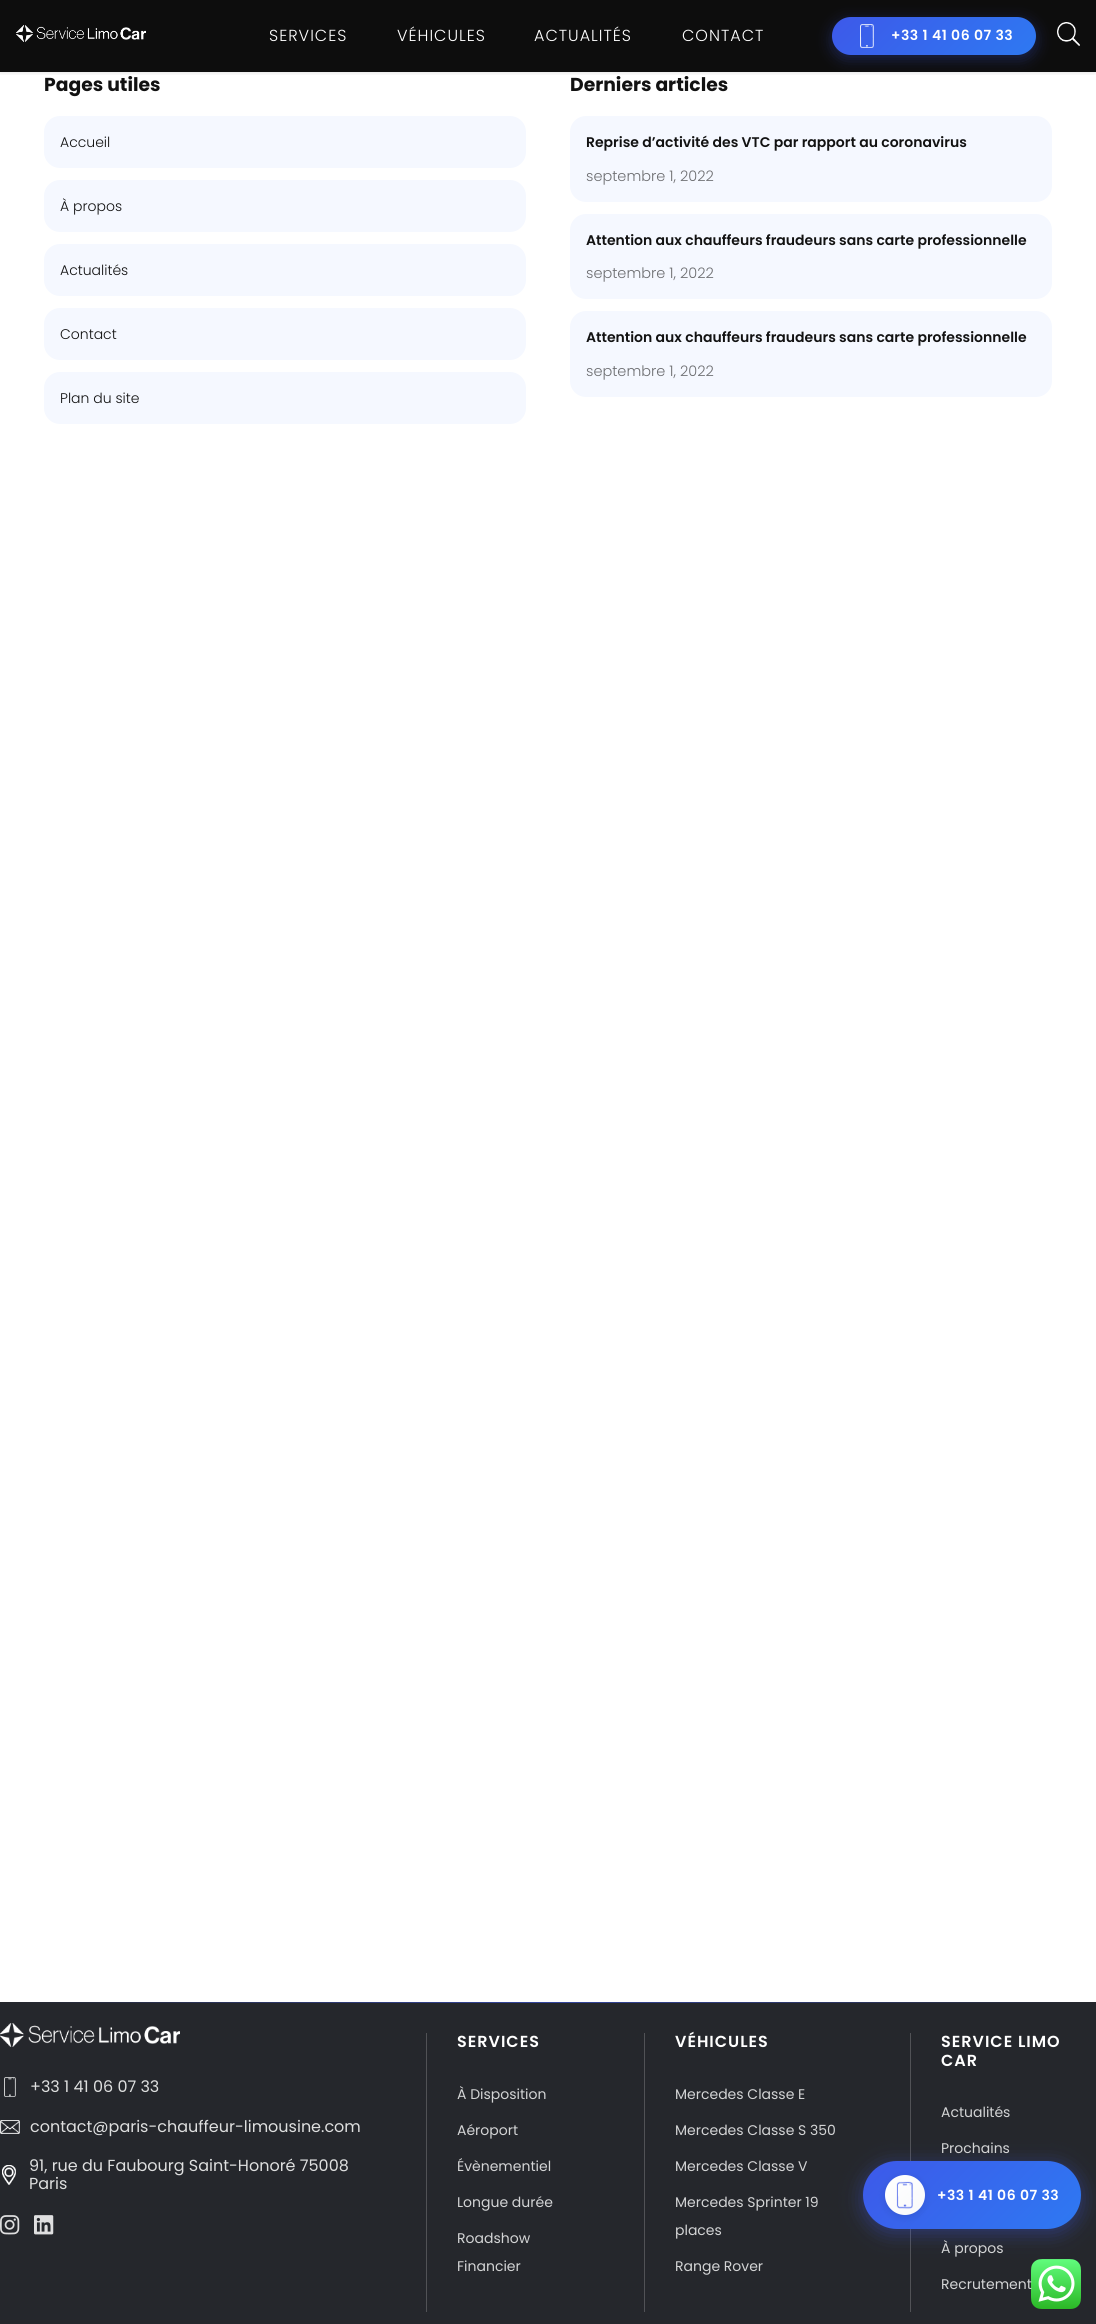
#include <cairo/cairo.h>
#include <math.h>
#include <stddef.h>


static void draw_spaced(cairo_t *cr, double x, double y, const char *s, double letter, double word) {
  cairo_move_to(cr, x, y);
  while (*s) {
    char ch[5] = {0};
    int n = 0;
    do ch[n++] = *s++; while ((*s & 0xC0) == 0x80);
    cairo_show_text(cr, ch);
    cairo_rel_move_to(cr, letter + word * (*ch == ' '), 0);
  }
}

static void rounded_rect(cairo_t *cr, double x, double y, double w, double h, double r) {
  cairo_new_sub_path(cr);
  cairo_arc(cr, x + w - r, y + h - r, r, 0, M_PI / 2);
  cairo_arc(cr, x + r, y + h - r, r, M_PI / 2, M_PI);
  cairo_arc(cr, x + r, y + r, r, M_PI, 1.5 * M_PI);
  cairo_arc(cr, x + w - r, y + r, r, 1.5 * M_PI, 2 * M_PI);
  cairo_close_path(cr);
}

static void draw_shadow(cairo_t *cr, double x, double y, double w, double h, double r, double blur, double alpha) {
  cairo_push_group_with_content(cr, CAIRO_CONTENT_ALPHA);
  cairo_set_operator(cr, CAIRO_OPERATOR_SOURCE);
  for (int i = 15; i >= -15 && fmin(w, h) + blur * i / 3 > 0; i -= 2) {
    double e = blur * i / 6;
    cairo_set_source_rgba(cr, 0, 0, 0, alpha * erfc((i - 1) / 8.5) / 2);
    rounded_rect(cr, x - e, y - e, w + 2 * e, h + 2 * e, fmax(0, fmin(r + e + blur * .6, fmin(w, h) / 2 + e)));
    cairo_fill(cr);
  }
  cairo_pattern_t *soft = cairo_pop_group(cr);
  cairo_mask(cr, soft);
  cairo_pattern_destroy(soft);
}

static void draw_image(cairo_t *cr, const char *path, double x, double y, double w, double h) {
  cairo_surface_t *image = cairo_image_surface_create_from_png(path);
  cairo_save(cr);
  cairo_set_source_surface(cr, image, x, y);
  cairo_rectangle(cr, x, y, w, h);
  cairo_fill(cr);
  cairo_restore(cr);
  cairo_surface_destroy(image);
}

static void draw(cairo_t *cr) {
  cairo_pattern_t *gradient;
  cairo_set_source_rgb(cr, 1, 1, 1);
  cairo_paint(cr);
  cairo_set_source_rgb(cr, 13 / 255.0, 13 / 255.0, 13 / 255.0);
  cairo_rectangle(cr, 0, 0, 1096, 72);
  cairo_fill(cr);
  cairo_save(cr);
  cairo_rectangle(cr, 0, 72, 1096, 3);
  cairo_clip(cr);
  cairo_set_source_rgb(cr, 0, 0, 0);
  draw_shadow(cr, 0, 0, 1096, 72, 0, 2.5, 0.16);
  cairo_restore(cr);
  draw_image(cr, "images/1.png", 16, 25, 130, 17);
  draw_image(cr, "images/3.png", 1057, 22, 23, 24);
  cairo_set_source_rgb(cr, 61 / 255.0, 89 / 255.0, 233 / 255.0);
  draw_shadow(cr, 832, 21, 204, 38, 19, 7.5, 0.3);
  gradient = cairo_pattern_create_linear(874, -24, 995, 97);
  cairo_pattern_add_color_stop_rgba(gradient, 0, 61 / 255.0, 89 / 255.0, 233 / 255.0, 1);
  cairo_pattern_add_color_stop_rgba(gradient, 1, 46 / 255.0, 121 / 255.0, 242 / 255.0, 1);
  cairo_set_source(cr, gradient);
  cairo_pattern_destroy(gradient);
  rounded_rect(cr, 832, 17, 204, 38, 19);
  cairo_fill(cr);
  draw_image(cr, "images/2.png", 860, 24, 14, 24);
  cairo_set_source_rgb(cr, 245 / 255.0, 248 / 255.0, 1);
  rounded_rect(cr, 44, 116, 482, 52, 16);
  cairo_fill(cr);
  rounded_rect(cr, 44, 180, 482, 52, 16);
  cairo_fill(cr);
  rounded_rect(cr, 44, 244, 482, 52, 16);
  cairo_fill(cr);
  rounded_rect(cr, 44, 308, 482, 52, 16);
  cairo_fill(cr);
  rounded_rect(cr, 44, 372, 482, 52, 16);
  cairo_fill(cr);
  rounded_rect(cr, 570, 116, 482, 86, 16);
  cairo_fill(cr);
  rounded_rect(cr, 570, 214, 482, 85, 16);
  cairo_fill(cr);
  rounded_rect(cr, 570, 311, 482, 86, 16);
  cairo_fill(cr);
  cairo_set_source_rgb(cr, 37 / 255.0, 39 / 255.0, 44 / 255.0);
  cairo_rectangle(cr, 0, 2003, 1096, 321);
  cairo_fill(cr);
  gradient = cairo_pattern_create_linear(0, 2003, 1096, 2003);
  cairo_pattern_add_color_stop_rgba(gradient, 0, 37 / 255.0, 39 / 255.0, 44 / 255.0, 1);
  cairo_pattern_add_color_stop_rgba(gradient, 0.5, 51 / 255.0, 69 / 255.0, 157 / 255.0, 1);
  cairo_pattern_add_color_stop_rgba(gradient, 1, 37 / 255.0, 39 / 255.0, 44 / 255.0, 1);
  cairo_set_source(cr, gradient);
  cairo_pattern_destroy(gradient);
  cairo_rectangle(cr, 0, 2002, 1096, 1);
  cairo_fill(cr);
  draw_image(cr, "images/4.png", 0, 2023, 180, 24);
  draw_image(cr, "images/5.png", 4, 2077, 12, 20);
  draw_image(cr, "images/6.png", 0, 2120, 20, 14);
  draw_image(cr, "images/7.png", 2, 2165, 14, 20);
  draw_image(cr, "images/8.png", 0, 2215, 20, 20);
  draw_image(cr, "images/9.png", 34, 2215, 20, 20);
  cairo_set_source_rgb(cr, 81 / 255.0, 82 / 255.0, 86 / 255.0);
  cairo_rectangle(cr, 426, 2033, 1, 279);
  cairo_fill(cr);
  cairo_rectangle(cr, 644, 2033, 1, 279);
  cairo_fill(cr);
  cairo_rectangle(cr, 910, 2033, 1, 279);
  cairo_fill(cr);
  cairo_set_source_rgb(cr, 61 / 255.0, 89 / 255.0, 233 / 255.0);
  draw_shadow(cr, 863, 2165, 218, 68, 34, 10, 0.4);
  gradient = cairo_pattern_create_linear(901, 2124, 1044, 2267);
  cairo_pattern_add_color_stop_rgba(gradient, 0, 61 / 255.0, 89 / 255.0, 233 / 255.0, 1);
  cairo_pattern_add_color_stop_rgba(gradient, 1, 46 / 255.0, 121 / 255.0, 242 / 255.0, 1);
  cairo_set_source(cr, gradient);
  cairo_pattern_destroy(gradient);
  rounded_rect(cr, 863, 2161, 218, 68, 34);
  cairo_fill(cr);
  cairo_set_source_rgb(cr, 0, 0, 0);
  draw_shadow(cr, 885, 2177, 40, 40, 20, 4, 0.1);
  gradient = cairo_pattern_create_linear(885, 2175, 925, 2215);
  cairo_pattern_add_color_stop_rgba(gradient, 0, 1, 1, 1, 1);
  cairo_pattern_add_color_stop_rgba(gradient, 1, 248 / 255.0, 249 / 255.0, 250 / 255.0, 1);
  cairo_set_source(cr, gradient);
  cairo_pattern_destroy(gradient);
  cairo_arc(cr, 905, 2195, 20, 0, 2 * M_PI);
  cairo_fill(cr);
  draw_image(cr, "images/10.png", 896, 2181, 17, 28);
  draw_image(cr, "images/11.png", 1031, 2259, 50, 50);
  cairo_select_font_face(cr, "Poppins Light", CAIRO_FONT_SLANT_NORMAL, CAIRO_FONT_WEIGHT_NORMAL);
  cairo_set_font_size(cr, 16);
  cairo_set_source_rgb(cr, 1, 1, 1);
  draw_spaced(cr, 269, 41, "SERVICES", 1, 0);
  draw_spaced(cr, 397, 41, "VÉHICULES", 1, 0);
  draw_spaced(cr, 534, 41, "ACTUALITÉS", 1, 0);
  draw_spaced(cr, 682, 41, "CONTACT", 1, 0);
  cairo_select_font_face(cr, "Poppins SemiBold", CAIRO_FONT_SLANT_NORMAL, CAIRO_FONT_WEIGHT_NORMAL);
  cairo_set_font_size(cr, 14);
  draw_spaced(cr, 891, 40, "+33 1 41 06 07 33", 0.5, 0);
  cairo_select_font_face(cr, "Poppins", CAIRO_FONT_SLANT_NORMAL, CAIRO_FONT_WEIGHT_BOLD);
  cairo_set_font_size(cr, 18.75);
  cairo_set_source_rgb(cr, 18 / 255.0, 18 / 255.0, 18 / 255.0);
  cairo_move_to(cr, 44, 91);
  cairo_show_text(cr, "Pages utiles");
  cairo_select_font_face(cr, "Poppins Light", CAIRO_FONT_SLANT_NORMAL, CAIRO_FONT_WEIGHT_NORMAL);
  cairo_set_font_size(cr, 14);
  cairo_move_to(cr, 60, 147);
  cairo_show_text(cr, "Accueil");
  cairo_move_to(cr, 60, 211);
  cairo_show_text(cr, "À propos");
  cairo_move_to(cr, 60, 275);
  cairo_show_text(cr, "Actualités");
  cairo_move_to(cr, 60, 339);
  cairo_show_text(cr, "Contact");
  cairo_move_to(cr, 60, 403);
  cairo_show_text(cr, "Plan du site");
  cairo_select_font_face(cr, "Poppins", CAIRO_FONT_SLANT_NORMAL, CAIRO_FONT_WEIGHT_BOLD);
  cairo_set_font_size(cr, 18.75);
  cairo_move_to(cr, 570, 91);
  cairo_show_text(cr, "Derniers articles");
  cairo_select_font_face(cr, "Poppins SemiBold", CAIRO_FONT_SLANT_NORMAL, CAIRO_FONT_WEIGHT_NORMAL);
  cairo_set_font_size(cr, 14);
  cairo_move_to(cr, 586, 147);
  cairo_show_text(cr, "Reprise d’activité des VTC par rapport au coronavirus");
  cairo_select_font_face(cr, "Poppins Light", CAIRO_FONT_SLANT_NORMAL, CAIRO_FONT_WEIGHT_NORMAL);
  cairo_set_font_size(cr, 14.5);
  cairo_set_source_rgb(cr, 109 / 255.0, 110 / 255.0, 113 / 255.0);
  cairo_move_to(cr, 586, 181);
  cairo_show_text(cr, "septembre 1, 2022");
  cairo_select_font_face(cr, "Poppins SemiBold", CAIRO_FONT_SLANT_NORMAL, CAIRO_FONT_WEIGHT_NORMAL);
  cairo_set_font_size(cr, 14);
  cairo_set_source_rgb(cr, 18 / 255.0, 18 / 255.0, 18 / 255.0);
  cairo_move_to(cr, 586, 245);
  cairo_show_text(cr, "Attention aux chauffeurs fraudeurs sans carte professionnelle");
  cairo_select_font_face(cr, "Poppins Light", CAIRO_FONT_SLANT_NORMAL, CAIRO_FONT_WEIGHT_NORMAL);
  cairo_set_font_size(cr, 14.5);
  cairo_set_source_rgb(cr, 109 / 255.0, 110 / 255.0, 113 / 255.0);
  cairo_move_to(cr, 586, 278);
  cairo_show_text(cr, "septembre 1, 2022");
  cairo_select_font_face(cr, "Poppins SemiBold", CAIRO_FONT_SLANT_NORMAL, CAIRO_FONT_WEIGHT_NORMAL);
  cairo_set_font_size(cr, 14);
  cairo_set_source_rgb(cr, 18 / 255.0, 18 / 255.0, 18 / 255.0);
  cairo_move_to(cr, 586, 342);
  cairo_show_text(cr, "Attention aux chauffeurs fraudeurs sans carte professionnelle");
  cairo_select_font_face(cr, "Poppins Light", CAIRO_FONT_SLANT_NORMAL, CAIRO_FONT_WEIGHT_NORMAL);
  cairo_set_font_size(cr, 14.5);
  cairo_set_source_rgb(cr, 109 / 255.0, 110 / 255.0, 113 / 255.0);
  cairo_move_to(cr, 586, 376);
  cairo_show_text(cr, "septembre 1, 2022");
  cairo_select_font_face(cr, "Poppins", CAIRO_FONT_SLANT_NORMAL, CAIRO_FONT_WEIGHT_NORMAL);
  cairo_set_font_size(cr, 16);
  cairo_set_source_rgb(cr, 222 / 255.0, 223 / 255.0, 223 / 255.0);
  cairo_move_to(cr, 30, 2092);
  cairo_show_text(cr, "+33 1 41 06 07 33");
  cairo_move_to(cr, 30, 2132);
  cairo_show_text(cr, "contact@paris-chauffeur-limousine.com");
  cairo_move_to(cr, 29, 2171);
  cairo_show_text(cr, "91, rue du Faubourg Saint-Honoré 75008");
  cairo_move_to(cr, 29, 2189);
  cairo_show_text(cr, "Paris");
  cairo_select_font_face(cr, "Poppins SemiBold", CAIRO_FONT_SLANT_NORMAL, CAIRO_FONT_WEIGHT_NORMAL);
  cairo_set_source_rgb(cr, 1, 1, 1);
  draw_spaced(cr, 457, 2047, "SERVICES", 1, 0);
  cairo_select_font_face(cr, "Poppins", CAIRO_FONT_SLANT_NORMAL, CAIRO_FONT_WEIGHT_NORMAL);
  cairo_set_font_size(cr, 14);
  cairo_set_source_rgb(cr, 211 / 255.0, 212 / 255.0, 213 / 255.0);
  cairo_move_to(cr, 457, 2099);
  cairo_show_text(cr, "À Disposition");
  cairo_move_to(cr, 457, 2135);
  cairo_show_text(cr, "Aéroport");
  cairo_move_to(cr, 457, 2171);
  cairo_show_text(cr, "Évènementiel");
  cairo_move_to(cr, 457, 2207);
  cairo_show_text(cr, "Longue durée");
  cairo_move_to(cr, 457, 2243);
  cairo_show_text(cr, "Roadshow");
  cairo_move_to(cr, 457, 2271);
  cairo_show_text(cr, "Financier");
  cairo_select_font_face(cr, "Poppins SemiBold", CAIRO_FONT_SLANT_NORMAL, CAIRO_FONT_WEIGHT_NORMAL);
  cairo_set_font_size(cr, 16);
  cairo_set_source_rgb(cr, 1, 1, 1);
  draw_spaced(cr, 675, 2047, "VÉHICULES", 1, 0);
  cairo_select_font_face(cr, "Poppins", CAIRO_FONT_SLANT_NORMAL, CAIRO_FONT_WEIGHT_NORMAL);
  cairo_set_font_size(cr, 14);
  cairo_set_source_rgb(cr, 211 / 255.0, 212 / 255.0, 213 / 255.0);
  cairo_move_to(cr, 675, 2099);
  cairo_show_text(cr, "Mercedes Classe E");
  cairo_move_to(cr, 675, 2135);
  cairo_show_text(cr, "Mercedes Classe S 350");
  cairo_move_to(cr, 675, 2171);
  cairo_show_text(cr, "Mercedes Classe V");
  cairo_move_to(cr, 675, 2207);
  cairo_show_text(cr, "Mercedes Sprinter 19");
  cairo_move_to(cr, 675, 2235);
  cairo_show_text(cr, "places");
  cairo_move_to(cr, 675, 2271);
  cairo_show_text(cr, "Range Rover");
  cairo_select_font_face(cr, "Poppins SemiBold", CAIRO_FONT_SLANT_NORMAL, CAIRO_FONT_WEIGHT_NORMAL);
  cairo_set_font_size(cr, 16);
  cairo_set_source_rgb(cr, 1, 1, 1);
  draw_spaced(cr, 941, 2047, "SERVICE LIMO", 1, 0);
  draw_spaced(cr, 941, 2066, "CAR", 1, 0);
  cairo_select_font_face(cr, "Poppins", CAIRO_FONT_SLANT_NORMAL, CAIRO_FONT_WEIGHT_NORMAL);
  cairo_set_font_size(cr, 14);
  cairo_set_source_rgb(cr, 211 / 255.0, 212 / 255.0, 213 / 255.0);
  cairo_move_to(cr, 941, 2117);
  cairo_show_text(cr, "Actualités");
  cairo_move_to(cr, 941, 2153);
  cairo_show_text(cr, "Prochains");
  cairo_move_to(cr, 941, 2253);
  cairo_show_text(cr, "À propos");
  cairo_move_to(cr, 941, 2289);
  cairo_show_text(cr, "Recrutement");
  cairo_select_font_face(cr, "Poppins SemiBold", CAIRO_FONT_SLANT_NORMAL, CAIRO_FONT_WEIGHT_NORMAL);
  cairo_set_source_rgb(cr, 1, 1, 1);
  draw_spaced(cr, 937, 2200, "+33 1 41 06 07 33", 0.5, 0);
}

int main(void) {
  cairo_surface_t *surface = cairo_image_surface_create(CAIRO_FORMAT_RGB24, 1096, 2324);
  cairo_t *cr = cairo_create(surface);
  cairo_font_options_t *options = cairo_font_options_create();
  cairo_font_options_set_hint_metrics(options, CAIRO_HINT_METRICS_OFF);
  cairo_font_options_set_hint_style(options, CAIRO_HINT_STYLE_NONE);
  cairo_set_font_options(cr, options);
  cairo_set_miter_limit(cr, 4);
  draw(cr);
  cairo_surface_write_to_png(surface, "out.png");
  cairo_font_options_destroy(options);
  cairo_destroy(cr);
  cairo_surface_destroy(surface);
  return 0;
}
